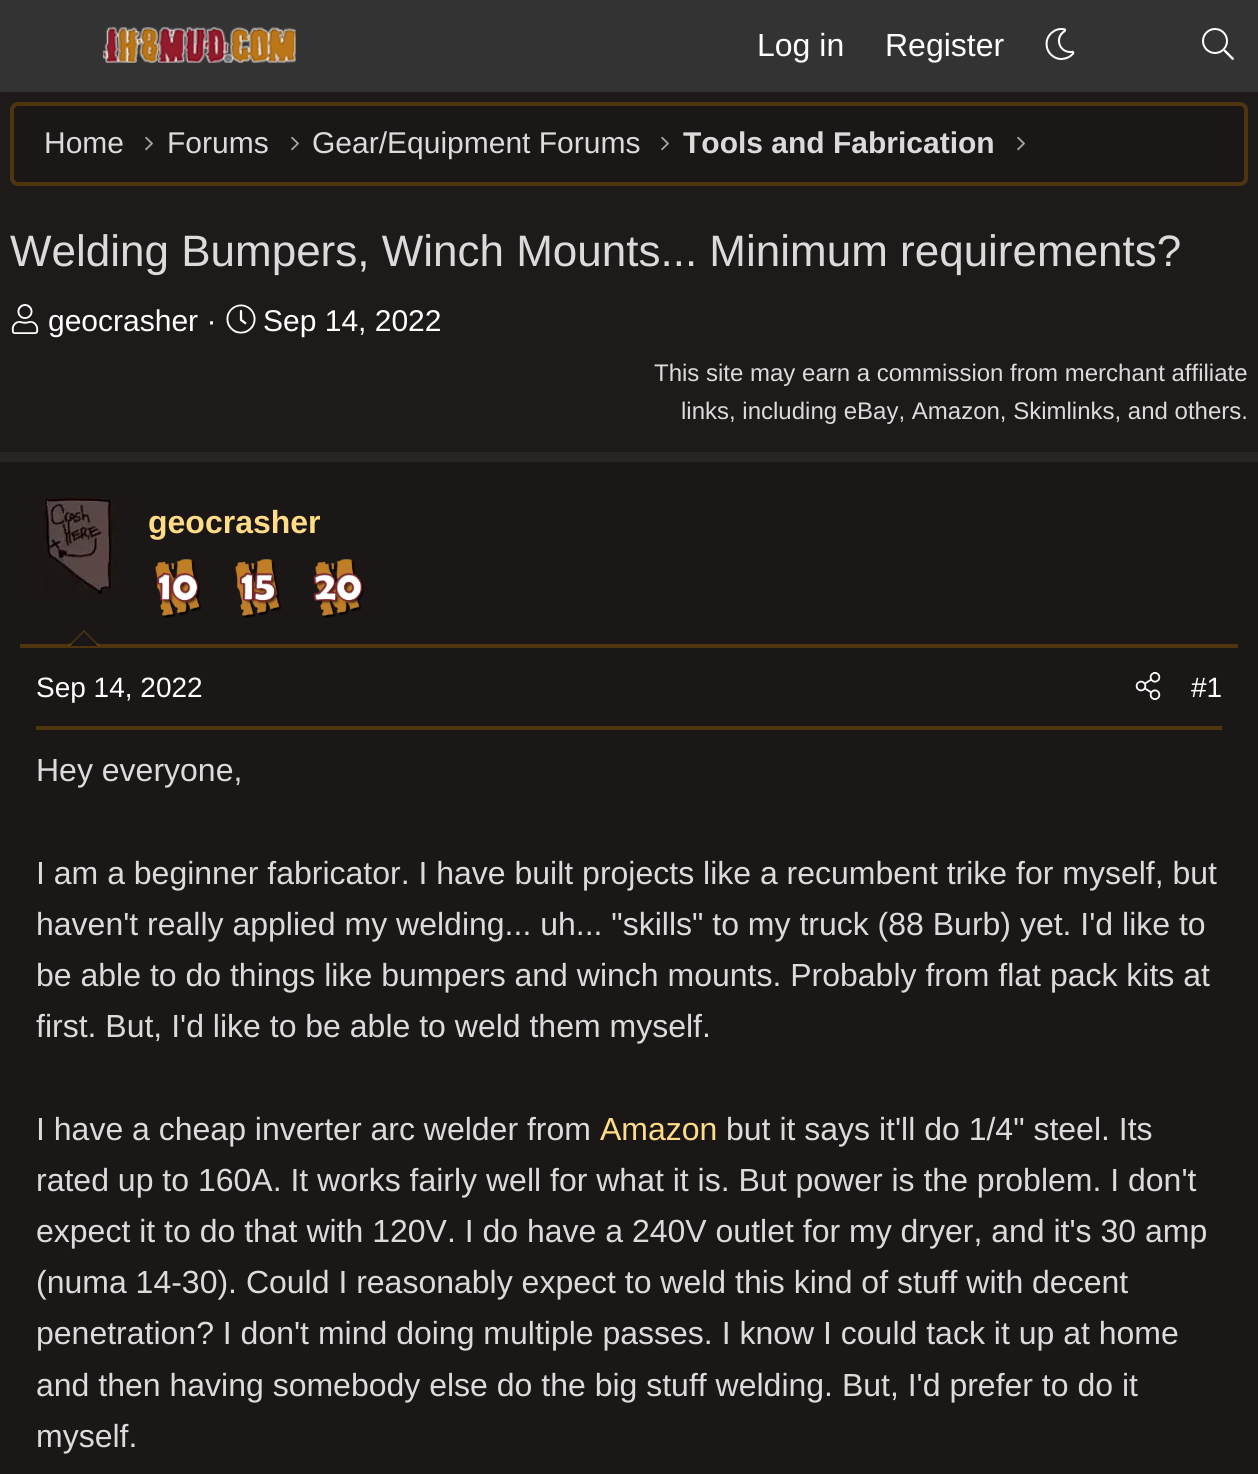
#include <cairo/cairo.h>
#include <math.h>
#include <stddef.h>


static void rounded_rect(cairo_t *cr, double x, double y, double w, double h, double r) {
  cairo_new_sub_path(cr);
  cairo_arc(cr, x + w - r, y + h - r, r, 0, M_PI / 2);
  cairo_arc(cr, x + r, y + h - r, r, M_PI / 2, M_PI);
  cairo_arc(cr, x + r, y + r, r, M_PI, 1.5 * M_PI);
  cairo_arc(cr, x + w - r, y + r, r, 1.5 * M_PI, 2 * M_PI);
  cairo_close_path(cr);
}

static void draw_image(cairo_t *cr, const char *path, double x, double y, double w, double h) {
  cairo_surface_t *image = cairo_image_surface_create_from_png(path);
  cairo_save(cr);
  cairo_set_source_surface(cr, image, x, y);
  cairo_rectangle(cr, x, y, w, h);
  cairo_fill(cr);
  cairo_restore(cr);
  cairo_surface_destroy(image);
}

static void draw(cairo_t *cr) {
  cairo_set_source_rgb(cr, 31 / 255.0, 26 / 255.0, 26 / 255.0);
  cairo_paint(cr);
  cairo_set_source_rgb(cr, 51 / 255.0, 51 / 255.0, 51 / 255.0);
  cairo_rectangle(cr, 0, 0, 1258, 92);
  cairo_fill(cr);
  draw_image(cr, "images/1.png", 102, 27, 194, 36);
  draw_image(cr, "images/2.png", 1045, 28, 30, 32);
  draw_image(cr, "images/3.png", 1202, 28, 32, 32);
  cairo_set_source_rgb(cr, 28 / 255.0, 23 / 255.0, 23 / 255.0);
  rounded_rect(cr, 12, 104, 1234, 80, 6);
  cairo_fill_preserve(cr);
  cairo_set_source_rgb(cr, 78 / 255.0, 53 / 255.0, 16 / 255.0);
  cairo_set_line_width(cr, 4);
  cairo_stroke(cr);
  draw_image(cr, "images/4.png", 145, 136, 8, 15);
  draw_image(cr, "images/4.png", 291, 136, 8, 15);
  draw_image(cr, "images/4.png", 661, 136, 8, 15);
  draw_image(cr, "images/4.png", 1017, 136, 8, 15);
  draw_image(cr, "images/5.png", 11, 304, 28, 30);
  draw_image(cr, "images/6.png", 226, 304, 30, 30);
  cairo_set_source_rgb(cr, 28 / 255.0, 23 / 255.0, 23 / 255.0);
  cairo_rectangle(cr, 0, 462, 1258, 1012);
  cairo_fill(cr);
  cairo_set_source_rgb(cr, 41 / 255.0, 36 / 255.0, 36 / 255.0);
  cairo_rectangle(cr, 0, 452, 1258, 10);
  cairo_fill(cr);
  cairo_set_source_rgb(cr, 78 / 255.0, 53 / 255.0, 16 / 255.0);
  cairo_rectangle(cr, 20, 644, 1218, 4);
  cairo_fill(cr);
  draw_image(cr, "images/7.png", 44, 498, 72, 96);
  draw_image(cr, "images/8.png", 155, 559, 47, 59);
  draw_image(cr, "images/9.png", 235, 559, 47, 59);
  draw_image(cr, "images/10.png", 313, 559, 51, 59);
  cairo_set_source_rgba(cr, 189 / 255.0, 120 / 255.0, 0, 0.31);
  cairo_new_path(cr);
  cairo_move_to(cr, 100, 646);
  cairo_line_to(cr, 68, 646);
  cairo_line_to(cr, 84, 630);
  cairo_close_path(cr);
  cairo_fill(cr);
  cairo_set_source_rgb(cr, 28 / 255.0, 23 / 255.0, 23 / 255.0);
  cairo_new_path(cr);
  cairo_move_to(cr, 98, 646);
  cairo_line_to(cr, 70, 646);
  cairo_line_to(cr, 84, 632);
  cairo_close_path(cr);
  cairo_fill(cr);
  cairo_set_source_rgb(cr, 78 / 255.0, 53 / 255.0, 16 / 255.0);
  cairo_rectangle(cr, 36, 726, 1186, 4);
  cairo_fill(cr);
  draw_image(cr, "images/11.png", 1135, 672, 26, 28);
  cairo_select_font_face(cr, "Liberation Sans", CAIRO_FONT_SLANT_NORMAL, CAIRO_FONT_WEIGHT_NORMAL);
  cairo_set_font_size(cr, 32);
  cairo_set_source_rgb(cr, 1, 1, 1);
  cairo_move_to(cr, 757, 56);
  cairo_show_text(cr, "Log in");
  cairo_move_to(cr, 885, 56);
  cairo_show_text(cr, "Register");
  cairo_set_font_size(cr, 30);
  cairo_set_source_rgb(cr, 219 / 255.0, 219 / 255.0, 219 / 255.0);
  cairo_move_to(cr, 44, 153);
  cairo_show_text(cr, "Home");
  cairo_move_to(cr, 167, 153);
  cairo_show_text(cr, "Forums");
  cairo_move_to(cr, 312, 153);
  cairo_show_text(cr, "Gear/Equipment Forums");
  cairo_select_font_face(cr, "Liberation Sans", CAIRO_FONT_SLANT_NORMAL, CAIRO_FONT_WEIGHT_BOLD);
  cairo_move_to(cr, 683, 153);
  cairo_show_text(cr, "Tools and Fabrication");
  cairo_select_font_face(cr, "Liberation Sans", CAIRO_FONT_SLANT_NORMAL, CAIRO_FONT_WEIGHT_NORMAL);
  cairo_set_font_size(cr, 44);
  cairo_move_to(cr, 10, 266);
  cairo_show_text(cr, "Welding Bumpers, Winch Mounts... Minimum requirements?");
  cairo_set_font_size(cr, 30);
  cairo_set_source_rgb(cr, 1, 1, 1);
  cairo_move_to(cr, 48, 331);
  cairo_show_text(cr, "geocrasher ·");
  cairo_move_to(cr, 263, 331);
  cairo_show_text(cr, "Sep 14, 2022");
  cairo_set_font_size(cr, 24);
  cairo_set_source_rgb(cr, 219 / 255.0, 219 / 255.0, 219 / 255.0);
  cairo_move_to(cr, 654, 381);
  cairo_show_text(cr, "This site may earn a commission from merchant affiliate");
  cairo_move_to(cr, 681, 419);
  cairo_show_text(cr, "links, including eBay, Amazon, Skimlinks, and others.");
  cairo_select_font_face(cr, "Liberation Sans", CAIRO_FONT_SLANT_NORMAL, CAIRO_FONT_WEIGHT_BOLD);
  cairo_set_font_size(cr, 32);
  cairo_set_source_rgb(cr, 1, 220 / 255.0, 133 / 255.0);
  cairo_move_to(cr, 148, 533);
  cairo_show_text(cr, "geocrasher");
  cairo_select_font_face(cr, "Liberation Sans", CAIRO_FONT_SLANT_NORMAL, CAIRO_FONT_WEIGHT_NORMAL);
  cairo_set_font_size(cr, 28);
  cairo_set_source_rgb(cr, 1, 1, 1);
  cairo_move_to(cr, 36, 697);
  cairo_show_text(cr, "Sep 14, 2022");
  cairo_move_to(cr, 1191, 697);
  cairo_show_text(cr, "#1");
  cairo_set_font_size(cr, 32);
  cairo_set_source_rgb(cr, 219 / 255.0, 219 / 255.0, 219 / 255.0);
  cairo_move_to(cr, 36, 781);
  cairo_show_text(cr, "Hey everyone,");
  cairo_move_to(cr, 36, 884);
  cairo_show_text(cr, "I am a beginner fabricator. I have built projects like a recumbent trike for myself, but");
  cairo_move_to(cr, 36, 935);
  cairo_show_text(cr, "haven't really applied my welding... uh... \"skills\" to my truck (88 Burb) yet. I'd like to");
  cairo_move_to(cr, 36, 986);
  cairo_show_text(cr, "be able to do things like bumpers and winch mounts. Probably from flat pack kits at");
  cairo_move_to(cr, 36, 1037);
  cairo_show_text(cr, "first. But, I'd like to be able to weld them myself.");
  cairo_move_to(cr, 36, 1140);
  cairo_show_text(cr, "I have a cheap inverter arc welder from");
  cairo_set_source_rgb(cr, 1, 220 / 255.0, 133 / 255.0);
  cairo_move_to(cr, 600, 1140);
  cairo_show_text(cr, "Amazon");
  cairo_set_source_rgb(cr, 219 / 255.0, 219 / 255.0, 219 / 255.0);
  cairo_move_to(cr, 726, 1140);
  cairo_show_text(cr, "but it says it'll do 1/4\" steel. Its");
  cairo_move_to(cr, 36, 1191);
  cairo_show_text(cr, "rated up to 160A. It works fairly well for what it is. But power is the problem. I don't");
  cairo_move_to(cr, 36, 1242);
  cairo_show_text(cr, "expect it to do that with 120V. I do have a 240V outlet for my dryer, and it's 30 amp");
  cairo_move_to(cr, 36, 1293);
  cairo_show_text(cr, "(numa 14-30). Could I reasonably expect to weld this kind of stuff with decent");
  cairo_move_to(cr, 36, 1344);
  cairo_show_text(cr, "penetration? I don't mind doing multiple passes. I know I could tack it up at home");
  cairo_move_to(cr, 36, 1396);
  cairo_show_text(cr, "and then having somebody else do the big stuff welding. But, I'd prefer to do it");
  cairo_move_to(cr, 36, 1447);
  cairo_show_text(cr, "myself.");
}

int main(void) {
  cairo_surface_t *surface = cairo_image_surface_create(CAIRO_FORMAT_RGB24, 1258, 1474);
  cairo_t *cr = cairo_create(surface);
  cairo_font_options_t *options = cairo_font_options_create();
  cairo_font_options_set_hint_metrics(options, CAIRO_HINT_METRICS_OFF);
  cairo_font_options_set_hint_style(options, CAIRO_HINT_STYLE_NONE);
  cairo_set_font_options(cr, options);
  cairo_set_miter_limit(cr, 4);
  draw(cr);
  cairo_surface_write_to_png(surface, "out.png");
  cairo_font_options_destroy(options);
  cairo_destroy(cr);
  cairo_surface_destroy(surface);
  return 0;
}
